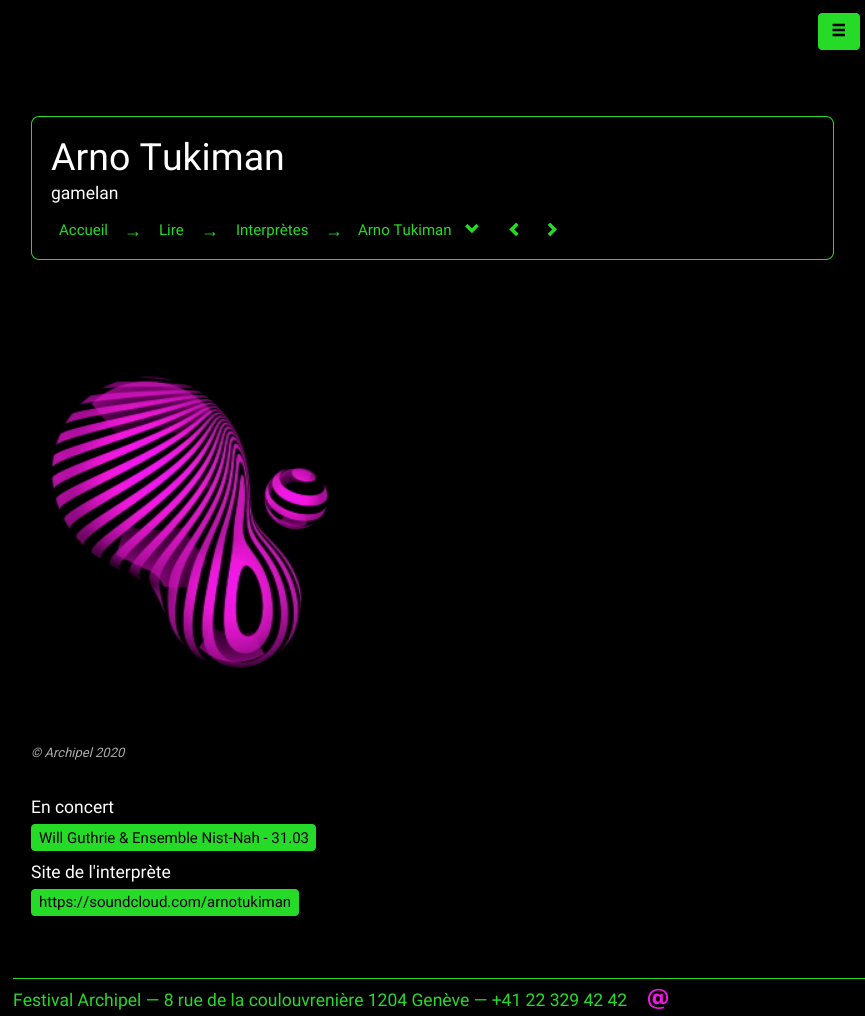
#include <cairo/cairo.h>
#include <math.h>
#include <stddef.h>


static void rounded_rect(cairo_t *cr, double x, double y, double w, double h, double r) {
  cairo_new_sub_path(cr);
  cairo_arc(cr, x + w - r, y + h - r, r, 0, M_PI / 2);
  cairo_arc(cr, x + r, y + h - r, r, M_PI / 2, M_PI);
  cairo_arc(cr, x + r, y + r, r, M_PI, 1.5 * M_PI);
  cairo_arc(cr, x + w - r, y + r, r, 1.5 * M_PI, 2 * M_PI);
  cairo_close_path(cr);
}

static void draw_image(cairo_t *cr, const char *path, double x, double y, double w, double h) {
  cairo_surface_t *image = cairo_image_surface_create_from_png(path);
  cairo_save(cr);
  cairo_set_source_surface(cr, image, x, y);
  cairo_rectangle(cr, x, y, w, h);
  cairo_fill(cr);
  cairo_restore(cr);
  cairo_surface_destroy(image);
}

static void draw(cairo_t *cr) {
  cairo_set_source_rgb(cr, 0, 0, 0);
  cairo_paint(cr);
  cairo_set_source_rgb(cr, 37 / 255.0, 219 / 255.0, 39 / 255.0);
  rounded_rect(cr, 818.5, 13.5, 41, 36, 3.5);
  cairo_fill_preserve(cr);
  cairo_set_line_width(cr, 1);
  cairo_stroke(cr);
  draw_image(cr, "images/1.png", 832, 23, 13, 14);
  rounded_rect(cr, 31.5, 116.5, 802, 143, 7.5);
  cairo_stroke(cr);
  draw_image(cr, "images/2.png", 465, 224, 14, 10);
  draw_image(cr, "images/3.png", 509, 222, 10, 15);
  draw_image(cr, "images/4.png", 547, 222, 10, 15);
  draw_image(cr, "images/5.png", 50, 376, 280, 292);
  rounded_rect(cr, 31.5, 824.5, 284, 26, 3.5);
  cairo_fill_preserve(cr);
  cairo_stroke(cr);
  rounded_rect(cr, 31.5, 889.5, 267, 26, 3.5);
  cairo_fill_preserve(cr);
  cairo_stroke(cr);
  cairo_rectangle(cr, 13, 978, 852, 1);
  cairo_fill(cr);
  draw_image(cr, "images/6.png", 647, 988, 22, 21);
  cairo_select_font_face(cr, "Roboto", CAIRO_FONT_SLANT_NORMAL, CAIRO_FONT_WEIGHT_NORMAL);
  cairo_set_font_size(cr, 37.5);
  cairo_set_source_rgb(cr, 1, 1, 1);
  cairo_move_to(cr, 51, 170);
  cairo_show_text(cr, "Arno Tukiman");
  cairo_set_font_size(cr, 17.5);
  cairo_move_to(cr, 51, 199);
  cairo_show_text(cr, "gamelan");
  cairo_set_font_size(cr, 15);
  cairo_set_source_rgb(cr, 37 / 255.0, 219 / 255.0, 39 / 255.0);
  cairo_move_to(cr, 59, 235);
  cairo_show_text(cr, "Accueil");
  cairo_select_font_face(cr, "Liberation Sans", CAIRO_FONT_SLANT_NORMAL, CAIRO_FONT_WEIGHT_NORMAL);
  cairo_set_font_size(cr, 18);
  cairo_move_to(cr, 124, 237);
  cairo_show_text(cr, "→");
  cairo_select_font_face(cr, "Roboto", CAIRO_FONT_SLANT_NORMAL, CAIRO_FONT_WEIGHT_NORMAL);
  cairo_set_font_size(cr, 15);
  cairo_move_to(cr, 159, 235);
  cairo_show_text(cr, "Lire");
  cairo_select_font_face(cr, "Liberation Sans", CAIRO_FONT_SLANT_NORMAL, CAIRO_FONT_WEIGHT_NORMAL);
  cairo_set_font_size(cr, 18);
  cairo_move_to(cr, 201, 237);
  cairo_show_text(cr, "→");
  cairo_select_font_face(cr, "Roboto", CAIRO_FONT_SLANT_NORMAL, CAIRO_FONT_WEIGHT_NORMAL);
  cairo_set_font_size(cr, 15);
  cairo_move_to(cr, 236, 235);
  cairo_show_text(cr, "Interprètes");
  cairo_select_font_face(cr, "Liberation Sans", CAIRO_FONT_SLANT_NORMAL, CAIRO_FONT_WEIGHT_NORMAL);
  cairo_set_font_size(cr, 18);
  cairo_move_to(cr, 325, 237);
  cairo_show_text(cr, "→");
  cairo_select_font_face(cr, "Roboto", CAIRO_FONT_SLANT_NORMAL, CAIRO_FONT_WEIGHT_NORMAL);
  cairo_set_font_size(cr, 15);
  cairo_move_to(cr, 358, 235);
  cairo_show_text(cr, "Arno Tukiman");
  cairo_select_font_face(cr, "Roboto", CAIRO_FONT_SLANT_ITALIC, CAIRO_FONT_WEIGHT_NORMAL);
  cairo_set_font_size(cr, 13);
  cairo_set_source_rgb(cr, 170 / 255.0, 170 / 255.0, 170 / 255.0);
  cairo_move_to(cr, 31, 757);
  cairo_show_text(cr, "© Archipel 2020");
  cairo_select_font_face(cr, "Roboto", CAIRO_FONT_SLANT_NORMAL, CAIRO_FONT_WEIGHT_NORMAL);
  cairo_set_font_size(cr, 17.5);
  cairo_set_source_rgb(cr, 1, 1, 1);
  cairo_move_to(cr, 31, 813);
  cairo_show_text(cr, "En concert");
  cairo_set_font_size(cr, 15);
  cairo_set_source_rgb(cr, 0, 0, 0);
  cairo_move_to(cr, 39, 843);
  cairo_show_text(cr, "Will Guthrie & Ensemble Nist-Nah - 31.03");
  cairo_set_font_size(cr, 17.5);
  cairo_set_source_rgb(cr, 1, 1, 1);
  cairo_move_to(cr, 31, 878);
  cairo_show_text(cr, "Site de l'interprète");
  cairo_set_font_size(cr, 15);
  cairo_set_source_rgb(cr, 0, 0, 0);
  cairo_move_to(cr, 39, 907);
  cairo_show_text(cr, "https://soundcloud.com/arnotukiman");
  cairo_set_font_size(cr, 17.5);
  cairo_set_source_rgb(cr, 37 / 255.0, 219 / 255.0, 39 / 255.0);
  cairo_move_to(cr, 13, 1006);
  cairo_show_text(cr, "Festival Archipel — 8 rue de la coulouvrenière 1204 Genève — +41 22 329 42 42");
}

int main(void) {
  cairo_surface_t *surface = cairo_image_surface_create(CAIRO_FORMAT_RGB24, 865, 1016);
  cairo_t *cr = cairo_create(surface);
  cairo_font_options_t *options = cairo_font_options_create();
  cairo_font_options_set_hint_metrics(options, CAIRO_HINT_METRICS_OFF);
  cairo_font_options_set_hint_style(options, CAIRO_HINT_STYLE_NONE);
  cairo_set_font_options(cr, options);
  cairo_set_miter_limit(cr, 4);
  draw(cr);
  cairo_surface_write_to_png(surface, "out.png");
  cairo_font_options_destroy(options);
  cairo_destroy(cr);
  cairo_surface_destroy(surface);
  return 0;
}
